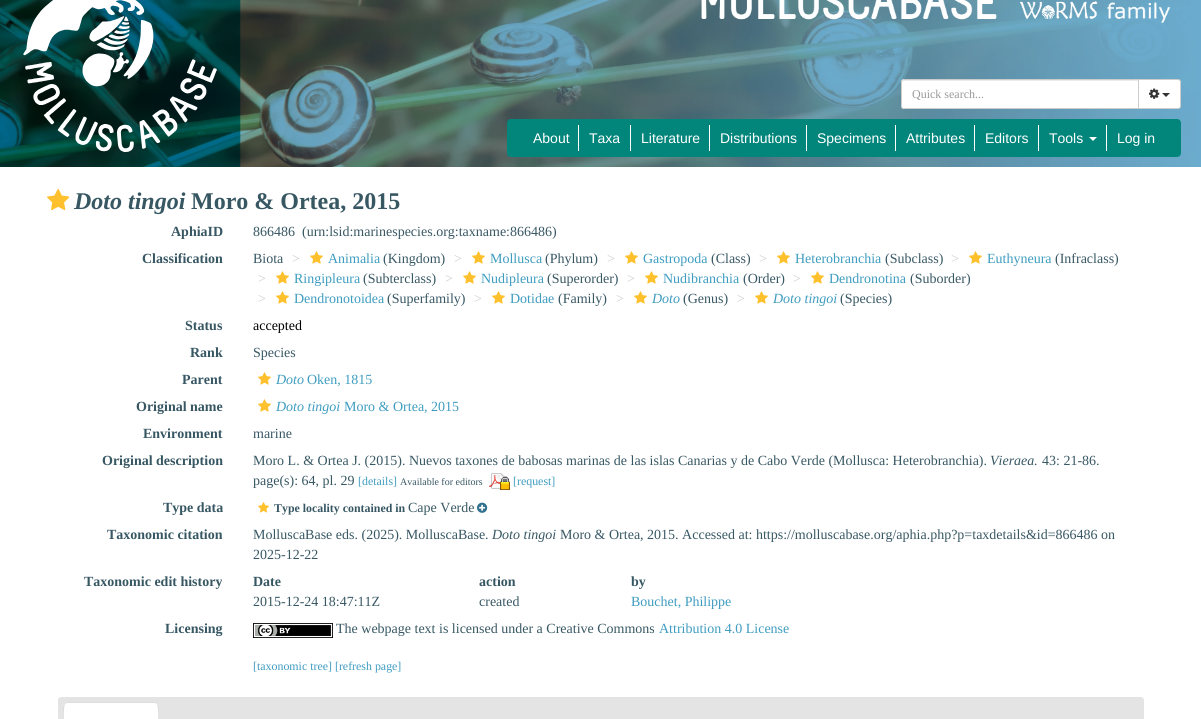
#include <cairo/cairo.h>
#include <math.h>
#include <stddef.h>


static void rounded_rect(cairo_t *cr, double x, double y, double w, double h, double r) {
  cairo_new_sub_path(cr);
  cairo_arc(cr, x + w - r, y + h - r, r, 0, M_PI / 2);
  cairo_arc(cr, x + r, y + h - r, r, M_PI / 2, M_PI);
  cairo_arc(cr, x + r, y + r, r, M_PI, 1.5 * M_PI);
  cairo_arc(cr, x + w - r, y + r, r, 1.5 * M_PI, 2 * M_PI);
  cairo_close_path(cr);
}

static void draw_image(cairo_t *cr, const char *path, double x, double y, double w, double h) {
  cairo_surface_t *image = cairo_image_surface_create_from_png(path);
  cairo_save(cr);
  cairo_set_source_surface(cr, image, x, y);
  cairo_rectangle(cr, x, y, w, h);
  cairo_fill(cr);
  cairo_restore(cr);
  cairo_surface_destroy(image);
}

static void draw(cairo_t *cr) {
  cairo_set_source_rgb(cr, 1, 1, 1);
  cairo_paint(cr);
  draw_image(cr, "images/1.png", 0, 0, 1201, 167);
  draw_image(cr, "images/2.png", 23, 0, 194, 152);
  draw_image(cr, "images/3.png", 701, 0, 470, 23);
  cairo_set_source_rgb(cr, 1, 1, 1);
  cairo_new_path(cr);
  cairo_move_to(cr, 904, 79);
  cairo_line_to(cr, 1139, 79);
  cairo_line_to(cr, 1139, 109);
  cairo_line_to(cr, 904, 109);
  cairo_curve_to(cr, 902.5, 109, 901, 107.5, 901, 106);
  cairo_line_to(cr, 901, 82);
  cairo_curve_to(cr, 901, 80.5, 902.5, 79, 904, 79);
  cairo_close_path(cr);
  cairo_fill(cr);
  cairo_set_source_rgb(cr, 236 / 255.0, 236 / 255.0, 236 / 255.0);
  cairo_new_path(cr);
  cairo_move_to(cr, 904, 81);
  cairo_line_to(cr, 1138, 81);
  cairo_line_to(cr, 1138, 80);
  cairo_line_to(cr, 904, 80);
  cairo_curve_to(cr, 903, 80, 902, 81, 902, 82);
  cairo_line_to(cr, 902, 83);
  cairo_curve_to(cr, 902, 82, 903, 81, 904, 81);
  cairo_close_path(cr);
  cairo_fill(cr);
  cairo_new_path(cr);
  cairo_move_to(cr, 904, 79.5);
  cairo_line_to(cr, 1138.5, 79.5);
  cairo_line_to(cr, 1138.5, 108.5);
  cairo_line_to(cr, 904, 108.5);
  cairo_curve_to(cr, 902.5, 108.5, 901.5, 107.5, 901.5, 106);
  cairo_line_to(cr, 901.5, 82);
  cairo_curve_to(cr, 901.5, 80.5, 902.5, 79.5, 904, 79.5);
  cairo_close_path(cr);
  cairo_set_source_rgb(cr, 204 / 255.0, 204 / 255.0, 204 / 255.0);
  cairo_set_line_width(cr, 1);
  cairo_stroke(cr);
  cairo_set_source_rgb(cr, 1, 1, 1);
  cairo_new_path(cr);
  cairo_move_to(cr, 1138.5, 79.5);
  cairo_line_to(cr, 1178, 79.5);
  cairo_curve_to(cr, 1179.5, 79.5, 1180.5, 80.5, 1180.5, 82);
  cairo_line_to(cr, 1180.5, 106);
  cairo_curve_to(cr, 1180.5, 107.5, 1179.5, 108.5, 1178, 108.5);
  cairo_line_to(cr, 1138.5, 108.5);
  cairo_close_path(cr);
  cairo_fill_preserve(cr);
  cairo_set_source_rgb(cr, 204 / 255.0, 204 / 255.0, 204 / 255.0);
  cairo_stroke(cr);
  draw_image(cr, "images/4.png", 1149, 88, 11, 11);
  cairo_set_source_rgb(cr, 51 / 255.0, 51 / 255.0, 51 / 255.0);
  cairo_new_path(cr);
  cairo_move_to(cr, 1162, 93);
  cairo_line_to(cr, 1170, 93);
  cairo_line_to(cr, 1166, 97);
  cairo_close_path(cr);
  cairo_fill(cr);
  cairo_set_source_rgb(cr, 2 / 255.0, 133 / 255.0, 123 / 255.0);
  rounded_rect(cr, 507, 119, 674, 38, 4);
  cairo_fill(cr);
  cairo_set_source_rgb(cr, 1, 1, 1);
  cairo_rectangle(cr, 578, 125, 1, 26);
  cairo_fill(cr);
  cairo_rectangle(cr, 630, 125, 1, 26);
  cairo_fill(cr);
  cairo_rectangle(cr, 709, 125, 1, 26);
  cairo_fill(cr);
  cairo_rectangle(cr, 806, 125, 1, 26);
  cairo_fill(cr);
  cairo_rectangle(cr, 895, 125, 1, 26);
  cairo_fill(cr);
  cairo_rectangle(cr, 974, 125, 1, 26);
  cairo_fill(cr);
  cairo_rectangle(cr, 1038, 125, 1, 26);
  cairo_fill(cr);
  cairo_new_path(cr);
  cairo_move_to(cr, 1089, 137);
  cairo_line_to(cr, 1097, 137);
  cairo_line_to(cr, 1093, 141);
  cairo_close_path(cr);
  cairo_fill(cr);
  cairo_rectangle(cr, 1106, 125, 1, 26);
  cairo_fill(cr);
  draw_image(cr, "images/5.png", 47, 188, 23, 23);
  draw_image(cr, "images/6.png", 310, 251, 13, 13);
  draw_image(cr, "images/6.png", 472, 251, 13, 13);
  draw_image(cr, "images/6.png", 625, 251, 13, 13);
  draw_image(cr, "images/6.png", 777, 251, 13, 13);
  draw_image(cr, "images/6.png", 969, 251, 13, 13);
  draw_image(cr, "images/6.png", 276, 271, 13, 13);
  draw_image(cr, "images/6.png", 463, 271, 13, 13);
  draw_image(cr, "images/6.png", 645, 271, 13, 13);
  draw_image(cr, "images/6.png", 811, 271, 13, 13);
  draw_image(cr, "images/6.png", 276, 291, 13, 13);
  draw_image(cr, "images/6.png", 492, 291, 13, 13);
  draw_image(cr, "images/6.png", 634, 291, 13, 13);
  draw_image(cr, "images/6.png", 755, 291, 13, 13);
  draw_image(cr, "images/6.png", 258, 372, 13, 13);
  draw_image(cr, "images/6.png", 258, 399, 13, 13);
  draw_image(cr, "images/7.png", 489, 473, 21, 17);
  draw_image(cr, "images/8.png", 258, 502, 11, 11);
  draw_image(cr, "images/9.png", 477, 502, 11, 11);
  draw_image(cr, "images/10.png", 253, 623, 80, 15);
  cairo_set_source_rgb(cr, 228 / 255.0, 228 / 255.0, 228 / 255.0);
  cairo_new_path(cr);
  cairo_move_to(cr, 61, 697);
  cairo_line_to(cr, 1141, 697);
  cairo_curve_to(cr, 1142.5, 697, 1144, 698.5, 1144, 700);
  cairo_line_to(cr, 1144, 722);
  cairo_line_to(cr, 58, 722);
  cairo_line_to(cr, 58, 700);
  cairo_curve_to(cr, 58, 698.5, 59.5, 697, 61, 697);
  cairo_close_path(cr);
  cairo_fill(cr);
  cairo_set_source_rgb(cr, 1, 1, 1);
  cairo_new_path(cr);
  cairo_move_to(cr, 67, 702);
  cairo_line_to(cr, 155, 702);
  cairo_curve_to(cr, 157, 702, 159, 704, 159, 706);
  cairo_line_to(cr, 159, 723);
  cairo_line_to(cr, 63, 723);
  cairo_line_to(cr, 63, 706);
  cairo_curve_to(cr, 63, 704, 65, 702, 67, 702);
  cairo_close_path(cr);
  cairo_fill(cr);
  cairo_set_source_rgb(cr, 221 / 255.0, 221 / 255.0, 221 / 255.0);
  cairo_new_path(cr);
  cairo_move_to(cr, 67, 702);
  cairo_line_to(cr, 64, 703);
  cairo_line_to(cr, 65, 704);
  cairo_line_to(cr, 67, 703);
  cairo_line_to(cr, 155, 703);
  cairo_line_to(cr, 157, 704);
  cairo_line_to(cr, 158, 703);
  cairo_line_to(cr, 155, 702);
  cairo_close_path(cr);
  cairo_fill(cr);
  cairo_new_path(cr);
  cairo_move_to(cr, 159, 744);
  cairo_line_to(cr, 159, 706);
  cairo_curve_to(cr, 159, 705, 158, 704, 158, 703);
  cairo_line_to(cr, 157, 704);
  cairo_curve_to(cr, 159, 706, 158, 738, 158, 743);
  cairo_close_path(cr);
  cairo_fill(cr);
  cairo_new_path(cr);
  cairo_move_to(cr, 63, 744);
  cairo_line_to(cr, 64, 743);
  cairo_curve_to(cr, 64, 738, 63, 706, 65, 704);
  cairo_line_to(cr, 64, 703);
  cairo_line_to(cr, 63, 706);
  cairo_close_path(cr);
  cairo_fill(cr);
  cairo_select_font_face(cr, "Liberation Serif", CAIRO_FONT_SLANT_NORMAL, CAIRO_FONT_WEIGHT_NORMAL);
  cairo_set_font_size(cr, 12);
  cairo_set_source_rgb(cr, 153 / 255.0, 153 / 255.0, 153 / 255.0);
  cairo_move_to(cr, 912, 98);
  cairo_show_text(cr, "Quick search...");
  cairo_select_font_face(cr, "Liberation Sans", CAIRO_FONT_SLANT_NORMAL, CAIRO_FONT_WEIGHT_NORMAL);
  cairo_set_font_size(cr, 14);
  cairo_set_source_rgb(cr, 1, 1, 1);
  cairo_move_to(cr, 533, 143);
  cairo_show_text(cr, "About");
  cairo_move_to(cr, 589, 143);
  cairo_show_text(cr, "Taxa");
  cairo_move_to(cr, 641, 143);
  cairo_show_text(cr, "Literature");
  cairo_move_to(cr, 720, 143);
  cairo_show_text(cr, "Distributions");
  cairo_move_to(cr, 817, 143);
  cairo_show_text(cr, "Specimens");
  cairo_move_to(cr, 906, 143);
  cairo_show_text(cr, "Attributes");
  cairo_move_to(cr, 985, 143);
  cairo_show_text(cr, "Editors");
  cairo_move_to(cr, 1049, 143);
  cairo_show_text(cr, "Tools");
  cairo_move_to(cr, 1117, 143);
  cairo_show_text(cr, "Log in");
  cairo_select_font_face(cr, "Liberation Serif", CAIRO_FONT_SLANT_ITALIC, CAIRO_FONT_WEIGHT_BOLD);
  cairo_set_font_size(cr, 24);
  cairo_set_source_rgb(cr, 55 / 255.0, 87 / 255.0, 99 / 255.0);
  cairo_move_to(cr, 74, 209);
  cairo_show_text(cr, "Doto tingoi");
  cairo_select_font_face(cr, "Liberation Serif", CAIRO_FONT_SLANT_NORMAL, CAIRO_FONT_WEIGHT_BOLD);
  cairo_move_to(cr, 191, 209);
  cairo_show_text(cr, "Moro & Ortea, 2015");
  cairo_set_font_size(cr, 14);
  cairo_move_to(cr, 171, 236);
  cairo_show_text(cr, "AphiaID");
  cairo_select_font_face(cr, "Liberation Serif", CAIRO_FONT_SLANT_NORMAL, CAIRO_FONT_WEIGHT_NORMAL);
  cairo_move_to(cr, 253, 236);
  cairo_show_text(cr, "866486");
  cairo_move_to(cr, 302, 236);
  cairo_show_text(cr, "(urn:lsid:marinespecies.org:taxname:866486)");
  cairo_select_font_face(cr, "Liberation Serif", CAIRO_FONT_SLANT_NORMAL, CAIRO_FONT_WEIGHT_BOLD);
  cairo_move_to(cr, 142, 263);
  cairo_show_text(cr, "Classification");
  cairo_select_font_face(cr, "Liberation Serif", CAIRO_FONT_SLANT_NORMAL, CAIRO_FONT_WEIGHT_NORMAL);
  cairo_move_to(cr, 253, 263);
  cairo_show_text(cr, "Biota");
  cairo_set_source_rgb(cr, 204 / 255.0, 204 / 255.0, 204 / 255.0);
  cairo_move_to(cr, 292, 263);
  cairo_show_text(cr, ">");
  cairo_set_source_rgb(cr, 62 / 255.0, 156 / 255.0, 192 / 255.0);
  cairo_move_to(cr, 328, 263);
  cairo_show_text(cr, "Animalia");
  cairo_set_source_rgb(cr, 55 / 255.0, 87 / 255.0, 99 / 255.0);
  cairo_move_to(cr, 383, 263);
  cairo_show_text(cr, "(Kingdom)");
  cairo_set_source_rgb(cr, 204 / 255.0, 204 / 255.0, 204 / 255.0);
  cairo_move_to(cr, 454, 263);
  cairo_show_text(cr, ">");
  cairo_set_source_rgb(cr, 62 / 255.0, 156 / 255.0, 192 / 255.0);
  cairo_move_to(cr, 490, 263);
  cairo_show_text(cr, "Mollusca");
  cairo_set_source_rgb(cr, 55 / 255.0, 87 / 255.0, 99 / 255.0);
  cairo_move_to(cr, 545, 263);
  cairo_show_text(cr, "(Phylum)");
  cairo_set_source_rgb(cr, 204 / 255.0, 204 / 255.0, 204 / 255.0);
  cairo_move_to(cr, 607, 263);
  cairo_show_text(cr, ">");
  cairo_set_source_rgb(cr, 62 / 255.0, 156 / 255.0, 192 / 255.0);
  cairo_move_to(cr, 643, 263);
  cairo_show_text(cr, "Gastropoda");
  cairo_set_source_rgb(cr, 55 / 255.0, 87 / 255.0, 99 / 255.0);
  cairo_move_to(cr, 711, 263);
  cairo_show_text(cr, "(Class)");
  cairo_set_source_rgb(cr, 204 / 255.0, 204 / 255.0, 204 / 255.0);
  cairo_move_to(cr, 759, 263);
  cairo_show_text(cr, ">");
  cairo_set_source_rgb(cr, 62 / 255.0, 156 / 255.0, 192 / 255.0);
  cairo_move_to(cr, 795, 263);
  cairo_show_text(cr, "Heterobranchia");
  cairo_set_source_rgb(cr, 55 / 255.0, 87 / 255.0, 99 / 255.0);
  cairo_move_to(cr, 885, 263);
  cairo_show_text(cr, "(Subclass)");
  cairo_set_source_rgb(cr, 204 / 255.0, 204 / 255.0, 204 / 255.0);
  cairo_move_to(cr, 951, 263);
  cairo_show_text(cr, ">");
  cairo_set_source_rgb(cr, 62 / 255.0, 156 / 255.0, 192 / 255.0);
  cairo_move_to(cr, 987, 263);
  cairo_show_text(cr, "Euthyneura");
  cairo_set_source_rgb(cr, 55 / 255.0, 87 / 255.0, 99 / 255.0);
  cairo_move_to(cr, 1055, 263);
  cairo_show_text(cr, "(Infraclass)");
  cairo_set_source_rgb(cr, 204 / 255.0, 204 / 255.0, 204 / 255.0);
  cairo_move_to(cr, 258, 283);
  cairo_show_text(cr, ">");
  cairo_set_source_rgb(cr, 62 / 255.0, 156 / 255.0, 192 / 255.0);
  cairo_move_to(cr, 294, 283);
  cairo_show_text(cr, "Ringipleura");
  cairo_set_source_rgb(cr, 55 / 255.0, 87 / 255.0, 99 / 255.0);
  cairo_move_to(cr, 363, 283);
  cairo_show_text(cr, "(Subterclass)");
  cairo_set_source_rgb(cr, 204 / 255.0, 204 / 255.0, 204 / 255.0);
  cairo_move_to(cr, 445, 283);
  cairo_show_text(cr, ">");
  cairo_set_source_rgb(cr, 62 / 255.0, 156 / 255.0, 192 / 255.0);
  cairo_move_to(cr, 481, 283);
  cairo_show_text(cr, "Nudipleura");
  cairo_set_source_rgb(cr, 55 / 255.0, 87 / 255.0, 99 / 255.0);
  cairo_move_to(cr, 547, 283);
  cairo_show_text(cr, "(Superorder)");
  cairo_set_source_rgb(cr, 204 / 255.0, 204 / 255.0, 204 / 255.0);
  cairo_move_to(cr, 627, 283);
  cairo_show_text(cr, ">");
  cairo_set_source_rgb(cr, 62 / 255.0, 156 / 255.0, 192 / 255.0);
  cairo_move_to(cr, 663, 283);
  cairo_show_text(cr, "Nudibranchia");
  cairo_set_source_rgb(cr, 55 / 255.0, 87 / 255.0, 99 / 255.0);
  cairo_move_to(cr, 743, 283);
  cairo_show_text(cr, "(Order)");
  cairo_set_source_rgb(cr, 204 / 255.0, 204 / 255.0, 204 / 255.0);
  cairo_move_to(cr, 793, 283);
  cairo_show_text(cr, ">");
  cairo_set_source_rgb(cr, 62 / 255.0, 156 / 255.0, 192 / 255.0);
  cairo_move_to(cr, 829, 283);
  cairo_show_text(cr, "Dendronotina");
  cairo_set_source_rgb(cr, 55 / 255.0, 87 / 255.0, 99 / 255.0);
  cairo_move_to(cr, 910, 283);
  cairo_show_text(cr, "(Suborder)");
  cairo_set_source_rgb(cr, 204 / 255.0, 204 / 255.0, 204 / 255.0);
  cairo_move_to(cr, 258, 303);
  cairo_show_text(cr, ">");
  cairo_set_source_rgb(cr, 62 / 255.0, 156 / 255.0, 192 / 255.0);
  cairo_move_to(cr, 294, 303);
  cairo_show_text(cr, "Dendronotoidea");
  cairo_set_source_rgb(cr, 55 / 255.0, 87 / 255.0, 99 / 255.0);
  cairo_move_to(cr, 387, 303);
  cairo_show_text(cr, "(Superfamily)");
  cairo_set_source_rgb(cr, 204 / 255.0, 204 / 255.0, 204 / 255.0);
  cairo_move_to(cr, 474, 303);
  cairo_show_text(cr, ">");
  cairo_set_source_rgb(cr, 62 / 255.0, 156 / 255.0, 192 / 255.0);
  cairo_move_to(cr, 510, 303);
  cairo_show_text(cr, "Dotidae");
  cairo_set_source_rgb(cr, 55 / 255.0, 87 / 255.0, 99 / 255.0);
  cairo_move_to(cr, 558, 303);
  cairo_show_text(cr, "(Family)");
  cairo_set_source_rgb(cr, 204 / 255.0, 204 / 255.0, 204 / 255.0);
  cairo_move_to(cr, 616, 303);
  cairo_show_text(cr, ">");
  cairo_select_font_face(cr, "Liberation Serif", CAIRO_FONT_SLANT_ITALIC, CAIRO_FONT_WEIGHT_NORMAL);
  cairo_set_source_rgb(cr, 62 / 255.0, 156 / 255.0, 192 / 255.0);
  cairo_move_to(cr, 652, 303);
  cairo_show_text(cr, "Doto");
  cairo_select_font_face(cr, "Liberation Serif", CAIRO_FONT_SLANT_NORMAL, CAIRO_FONT_WEIGHT_NORMAL);
  cairo_set_source_rgb(cr, 55 / 255.0, 87 / 255.0, 99 / 255.0);
  cairo_move_to(cr, 683, 303);
  cairo_show_text(cr, "(Genus)");
  cairo_set_source_rgb(cr, 204 / 255.0, 204 / 255.0, 204 / 255.0);
  cairo_move_to(cr, 737, 303);
  cairo_show_text(cr, ">");
  cairo_select_font_face(cr, "Liberation Serif", CAIRO_FONT_SLANT_ITALIC, CAIRO_FONT_WEIGHT_NORMAL);
  cairo_set_source_rgb(cr, 62 / 255.0, 156 / 255.0, 192 / 255.0);
  cairo_move_to(cr, 773, 303);
  cairo_show_text(cr, "Doto tingoi");
  cairo_select_font_face(cr, "Liberation Serif", CAIRO_FONT_SLANT_NORMAL, CAIRO_FONT_WEIGHT_NORMAL);
  cairo_set_source_rgb(cr, 55 / 255.0, 87 / 255.0, 99 / 255.0);
  cairo_move_to(cr, 840, 303);
  cairo_show_text(cr, "(Species)");
  cairo_select_font_face(cr, "Liberation Serif", CAIRO_FONT_SLANT_NORMAL, CAIRO_FONT_WEIGHT_BOLD);
  cairo_move_to(cr, 185, 330);
  cairo_show_text(cr, "Status");
  cairo_select_font_face(cr, "Liberation Serif", CAIRO_FONT_SLANT_NORMAL, CAIRO_FONT_WEIGHT_NORMAL);
  cairo_set_source_rgb(cr, 0, 0, 0);
  cairo_move_to(cr, 253, 330);
  cairo_show_text(cr, "accepted");
  cairo_select_font_face(cr, "Liberation Serif", CAIRO_FONT_SLANT_NORMAL, CAIRO_FONT_WEIGHT_BOLD);
  cairo_set_source_rgb(cr, 55 / 255.0, 87 / 255.0, 99 / 255.0);
  cairo_move_to(cr, 190, 357);
  cairo_show_text(cr, "Rank");
  cairo_select_font_face(cr, "Liberation Serif", CAIRO_FONT_SLANT_NORMAL, CAIRO_FONT_WEIGHT_NORMAL);
  cairo_move_to(cr, 253, 357);
  cairo_show_text(cr, "Species");
  cairo_select_font_face(cr, "Liberation Serif", CAIRO_FONT_SLANT_NORMAL, CAIRO_FONT_WEIGHT_BOLD);
  cairo_move_to(cr, 182, 384);
  cairo_show_text(cr, "Parent");
  cairo_select_font_face(cr, "Liberation Serif", CAIRO_FONT_SLANT_ITALIC, CAIRO_FONT_WEIGHT_NORMAL);
  cairo_set_source_rgb(cr, 62 / 255.0, 156 / 255.0, 192 / 255.0);
  cairo_move_to(cr, 276, 384);
  cairo_show_text(cr, "Doto");
  cairo_select_font_face(cr, "Liberation Serif", CAIRO_FONT_SLANT_NORMAL, CAIRO_FONT_WEIGHT_NORMAL);
  cairo_move_to(cr, 307, 384);
  cairo_show_text(cr, "Oken, 1815");
  cairo_select_font_face(cr, "Liberation Serif", CAIRO_FONT_SLANT_NORMAL, CAIRO_FONT_WEIGHT_BOLD);
  cairo_set_source_rgb(cr, 55 / 255.0, 87 / 255.0, 99 / 255.0);
  cairo_move_to(cr, 136, 411);
  cairo_show_text(cr, "Original name");
  cairo_select_font_face(cr, "Liberation Serif", CAIRO_FONT_SLANT_ITALIC, CAIRO_FONT_WEIGHT_NORMAL);
  cairo_set_source_rgb(cr, 62 / 255.0, 156 / 255.0, 192 / 255.0);
  cairo_move_to(cr, 276, 411);
  cairo_show_text(cr, "Doto tingoi");
  cairo_select_font_face(cr, "Liberation Serif", CAIRO_FONT_SLANT_NORMAL, CAIRO_FONT_WEIGHT_NORMAL);
  cairo_move_to(cr, 344, 411);
  cairo_show_text(cr, "Moro & Ortea, 2015");
  cairo_select_font_face(cr, "Liberation Serif", CAIRO_FONT_SLANT_NORMAL, CAIRO_FONT_WEIGHT_BOLD);
  cairo_set_source_rgb(cr, 55 / 255.0, 87 / 255.0, 99 / 255.0);
  cairo_move_to(cr, 143, 438);
  cairo_show_text(cr, "Environment");
  cairo_select_font_face(cr, "Liberation Serif", CAIRO_FONT_SLANT_NORMAL, CAIRO_FONT_WEIGHT_NORMAL);
  cairo_move_to(cr, 253, 438);
  cairo_show_text(cr, "marine");
  cairo_select_font_face(cr, "Liberation Serif", CAIRO_FONT_SLANT_NORMAL, CAIRO_FONT_WEIGHT_BOLD);
  cairo_move_to(cr, 102, 465);
  cairo_show_text(cr, "Original description");
  cairo_select_font_face(cr, "Liberation Serif", CAIRO_FONT_SLANT_NORMAL, CAIRO_FONT_WEIGHT_NORMAL);
  cairo_move_to(cr, 253, 465);
  cairo_show_text(cr, "Moro L. & Ortea J. (2015). Nuevos taxones de babosas marinas de las islas Canarias y de Cabo Verde (Mollusca: Heterobranchia).");
  cairo_select_font_face(cr, "Liberation Serif", CAIRO_FONT_SLANT_ITALIC, CAIRO_FONT_WEIGHT_NORMAL);
  cairo_move_to(cr, 990, 465);
  cairo_show_text(cr, "Vieraea.");
  cairo_select_font_face(cr, "Liberation Serif", CAIRO_FONT_SLANT_NORMAL, CAIRO_FONT_WEIGHT_NORMAL);
  cairo_move_to(cr, 1042, 465);
  cairo_show_text(cr, "43: 21-86.");
  cairo_move_to(cr, 253, 485);
  cairo_show_text(cr, "page(s): 64, pl. 29");
  cairo_set_font_size(cr, 11.9);
  cairo_set_source_rgb(cr, 62 / 255.0, 156 / 255.0, 192 / 255.0);
  cairo_move_to(cr, 358, 485);
  cairo_show_text(cr, "[details]");
  cairo_set_font_size(cr, 10);
  cairo_set_source_rgb(cr, 55 / 255.0, 87 / 255.0, 99 / 255.0);
  cairo_move_to(cr, 400, 485);
  cairo_show_text(cr, "Available for editors");
  cairo_set_font_size(cr, 11.9);
  cairo_set_source_rgb(cr, 62 / 255.0, 156 / 255.0, 192 / 255.0);
  cairo_move_to(cr, 513, 485);
  cairo_show_text(cr, "[request]");
  cairo_select_font_face(cr, "Liberation Serif", CAIRO_FONT_SLANT_NORMAL, CAIRO_FONT_WEIGHT_BOLD);
  cairo_set_font_size(cr, 14);
  cairo_set_source_rgb(cr, 55 / 255.0, 87 / 255.0, 99 / 255.0);
  cairo_move_to(cr, 163, 512);
  cairo_show_text(cr, "Type data");
  cairo_set_font_size(cr, 11.9);
  cairo_move_to(cr, 274, 512);
  cairo_show_text(cr, "Type locality contained in");
  cairo_select_font_face(cr, "Liberation Serif", CAIRO_FONT_SLANT_NORMAL, CAIRO_FONT_WEIGHT_NORMAL);
  cairo_set_font_size(cr, 14);
  cairo_move_to(cr, 408, 512);
  cairo_show_text(cr, "Cape Verde");
  cairo_select_font_face(cr, "Liberation Serif", CAIRO_FONT_SLANT_NORMAL, CAIRO_FONT_WEIGHT_BOLD);
  cairo_move_to(cr, 107, 539);
  cairo_show_text(cr, "Taxonomic citation");
  cairo_select_font_face(cr, "Liberation Serif", CAIRO_FONT_SLANT_NORMAL, CAIRO_FONT_WEIGHT_NORMAL);
  cairo_move_to(cr, 253, 539);
  cairo_show_text(cr, "MolluscaBase eds. (2025). MolluscaBase.");
  cairo_select_font_face(cr, "Liberation Serif", CAIRO_FONT_SLANT_ITALIC, CAIRO_FONT_WEIGHT_NORMAL);
  cairo_move_to(cr, 492, 539);
  cairo_show_text(cr, "Doto tingoi");
  cairo_select_font_face(cr, "Liberation Serif", CAIRO_FONT_SLANT_NORMAL, CAIRO_FONT_WEIGHT_NORMAL);
  cairo_move_to(cr, 560, 539);
  cairo_show_text(cr, "Moro & Ortea, 2015. Accessed at: https://molluscabase.org/aphia.php?p=taxdetails&id=866486 on");
  cairo_move_to(cr, 253, 559);
  cairo_show_text(cr, "2025-12-22");
  cairo_select_font_face(cr, "Liberation Serif", CAIRO_FONT_SLANT_NORMAL, CAIRO_FONT_WEIGHT_BOLD);
  cairo_move_to(cr, 84, 586);
  cairo_show_text(cr, "Taxonomic edit history");
  cairo_move_to(cr, 253, 586);
  cairo_show_text(cr, "Date");
  cairo_move_to(cr, 479, 586);
  cairo_show_text(cr, "action");
  cairo_move_to(cr, 631, 586);
  cairo_show_text(cr, "by");
  cairo_select_font_face(cr, "Liberation Serif", CAIRO_FONT_SLANT_NORMAL, CAIRO_FONT_WEIGHT_NORMAL);
  cairo_move_to(cr, 253, 606);
  cairo_show_text(cr, "2015-12-24 18:47:11Z");
  cairo_move_to(cr, 479, 606);
  cairo_show_text(cr, "created");
  cairo_set_source_rgb(cr, 62 / 255.0, 156 / 255.0, 192 / 255.0);
  cairo_move_to(cr, 631, 606);
  cairo_show_text(cr, "Bouchet, Philippe");
  cairo_select_font_face(cr, "Liberation Serif", CAIRO_FONT_SLANT_NORMAL, CAIRO_FONT_WEIGHT_BOLD);
  cairo_set_source_rgb(cr, 55 / 255.0, 87 / 255.0, 99 / 255.0);
  cairo_move_to(cr, 165, 633);
  cairo_show_text(cr, "Licensing");
  cairo_select_font_face(cr, "Liberation Serif", CAIRO_FONT_SLANT_NORMAL, CAIRO_FONT_WEIGHT_NORMAL);
  cairo_move_to(cr, 336, 633);
  cairo_show_text(cr, "The webpage text is licensed under a Creative Commons");
  cairo_set_source_rgb(cr, 62 / 255.0, 156 / 255.0, 192 / 255.0);
  cairo_move_to(cr, 659, 633);
  cairo_show_text(cr, "Attribution 4.0 License");
  cairo_set_font_size(cr, 11.9);
  cairo_move_to(cr, 253, 670);
  cairo_show_text(cr, "[taxonomic tree] [refresh page]");
}

int main(void) {
  cairo_surface_t *surface = cairo_image_surface_create(CAIRO_FORMAT_RGB24, 1201, 719);
  cairo_t *cr = cairo_create(surface);
  cairo_font_options_t *options = cairo_font_options_create();
  cairo_font_options_set_hint_metrics(options, CAIRO_HINT_METRICS_OFF);
  cairo_font_options_set_hint_style(options, CAIRO_HINT_STYLE_NONE);
  cairo_set_font_options(cr, options);
  cairo_set_miter_limit(cr, 4);
  draw(cr);
  cairo_surface_write_to_png(surface, "out.png");
  cairo_font_options_destroy(options);
  cairo_destroy(cr);
  cairo_surface_destroy(surface);
  return 0;
}
